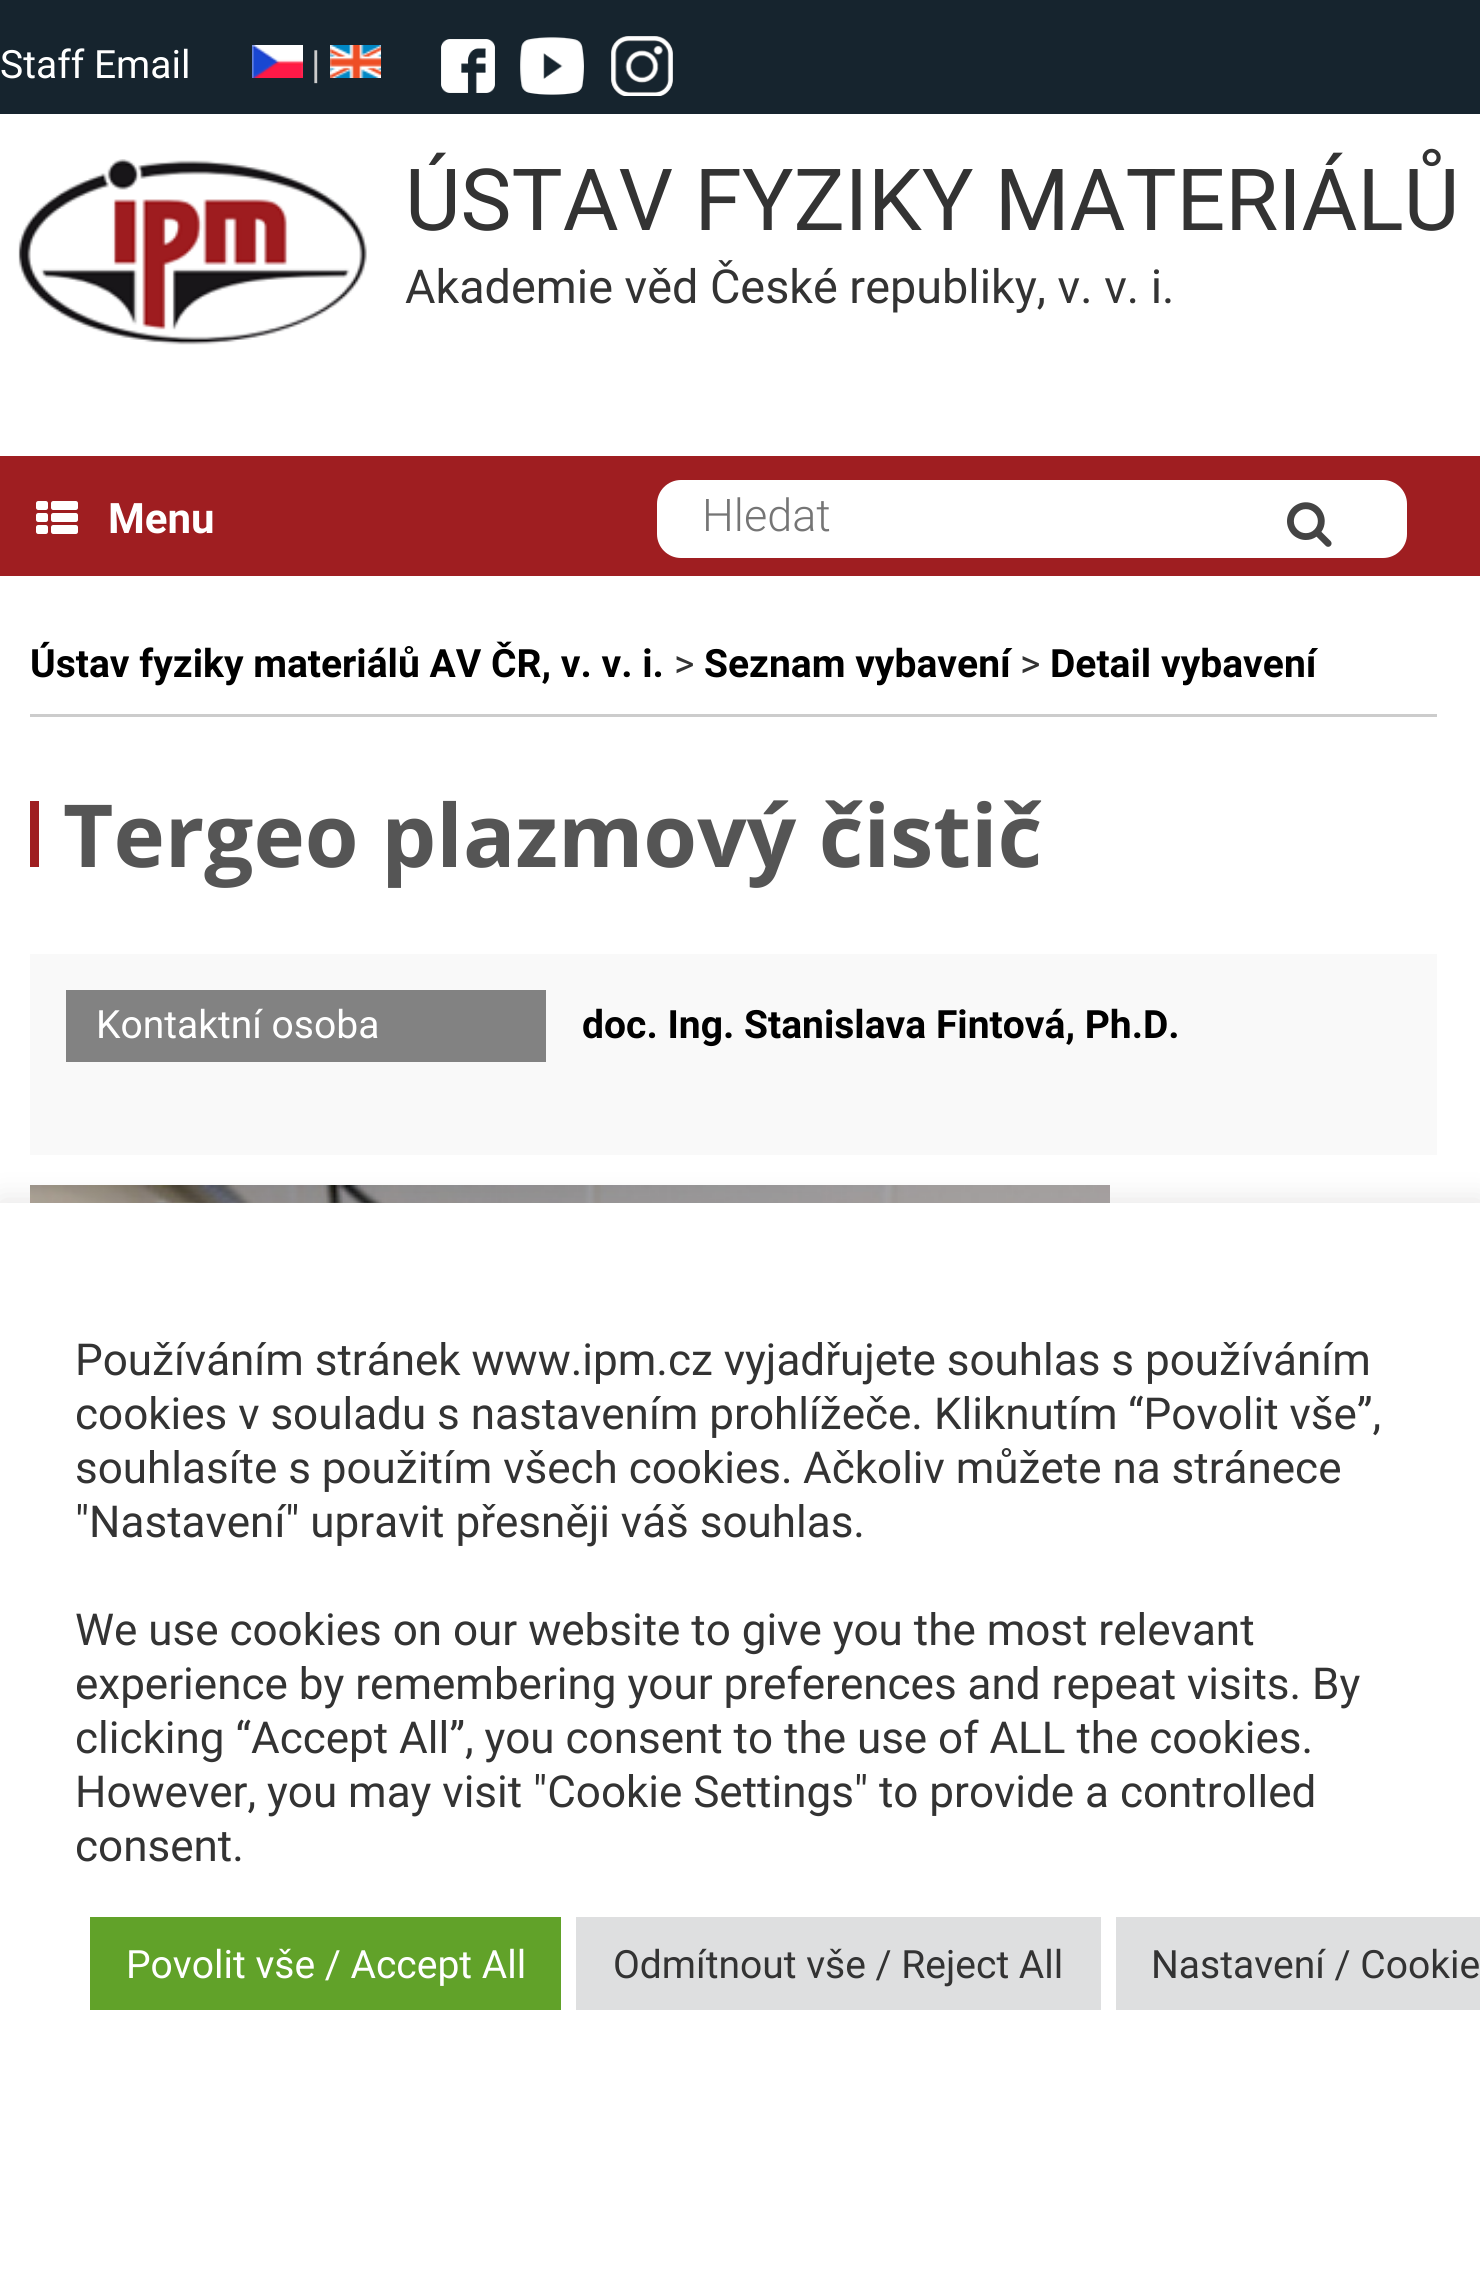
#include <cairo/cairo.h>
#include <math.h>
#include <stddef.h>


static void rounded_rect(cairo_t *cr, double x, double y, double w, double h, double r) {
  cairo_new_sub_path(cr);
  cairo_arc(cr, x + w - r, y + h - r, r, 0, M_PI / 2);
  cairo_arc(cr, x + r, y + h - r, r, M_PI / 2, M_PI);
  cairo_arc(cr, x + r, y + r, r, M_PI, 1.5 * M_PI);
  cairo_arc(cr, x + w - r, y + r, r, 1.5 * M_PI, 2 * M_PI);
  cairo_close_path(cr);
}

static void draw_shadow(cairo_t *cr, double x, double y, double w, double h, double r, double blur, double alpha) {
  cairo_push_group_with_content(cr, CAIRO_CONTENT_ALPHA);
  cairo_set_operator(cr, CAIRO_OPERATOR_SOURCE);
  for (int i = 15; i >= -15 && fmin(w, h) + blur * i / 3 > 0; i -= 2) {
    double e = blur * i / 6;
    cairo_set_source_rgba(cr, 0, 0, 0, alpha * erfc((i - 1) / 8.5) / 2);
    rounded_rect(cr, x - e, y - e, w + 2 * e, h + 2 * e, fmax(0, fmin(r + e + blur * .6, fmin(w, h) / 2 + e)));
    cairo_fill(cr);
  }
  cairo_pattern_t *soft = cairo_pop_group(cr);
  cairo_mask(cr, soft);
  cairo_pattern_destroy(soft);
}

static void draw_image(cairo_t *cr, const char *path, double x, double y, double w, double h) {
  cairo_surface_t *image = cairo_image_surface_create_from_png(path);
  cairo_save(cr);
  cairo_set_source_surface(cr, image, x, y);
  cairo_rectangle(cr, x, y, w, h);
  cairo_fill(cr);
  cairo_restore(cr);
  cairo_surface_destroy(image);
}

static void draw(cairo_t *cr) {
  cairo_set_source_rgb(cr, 1, 1, 1);
  cairo_paint(cr);
  cairo_set_source_rgb(cr, 22 / 255.0, 36 / 255.0, 46 / 255.0);
  cairo_rectangle(cr, 0, 0, 1480, 114);
  cairo_fill(cr);
  draw_image(cr, "images/1.png", 252, 45, 51, 33);
  draw_image(cr, "images/2.png", 330, 45, 51, 33);
  draw_image(cr, "images/3.png", 441, 39, 54, 54);
  draw_image(cr, "images/4.png", 520, 37, 64, 58);
  draw_image(cr, "images/5.png", 611, 36, 62, 60);
  draw_image(cr, "images/6.png", 18, 159, 349, 186);
  cairo_set_source_rgb(cr, 159 / 255.0, 30 / 255.0, 33 / 255.0);
  cairo_rectangle(cr, 0, 456, 1480, 120);
  cairo_fill(cr);
  draw_image(cr, "images/7.png", 36, 501, 42, 33);
  cairo_set_source_rgb(cr, 1, 1, 1);
  rounded_rect(cr, 657, 480, 750, 78, 24);
  cairo_fill(cr);
  draw_image(cr, "images/8.png", 1287, 502, 45, 45);
  cairo_set_source_rgb(cr, 204 / 255.0, 204 / 255.0, 204 / 255.0);
  cairo_rectangle(cr, 30, 714, 1407, 3);
  cairo_fill(cr);
  cairo_set_source_rgb(cr, 159 / 255.0, 30 / 255.0, 33 / 255.0);
  cairo_rectangle(cr, 30, 801, 9, 66);
  cairo_fill(cr);
  cairo_set_source_rgb(cr, 249 / 255.0, 249 / 255.0, 249 / 255.0);
  cairo_rectangle(cr, 30, 954, 1407, 201);
  cairo_fill(cr);
  cairo_set_source_rgb(cr, 130 / 255.0, 130 / 255.0, 130 / 255.0);
  cairo_rectangle(cr, 66, 990, 480, 72);
  cairo_fill(cr);
  draw_image(cr, "images/9.png", 30, 1185, 1080, 18);
  cairo_set_source_rgb(cr, 172 / 255.0, 171 / 255.0, 171 / 255.0);
  draw_shadow(cr, 0, 1200, 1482, 1071, 0, 15, 0.3);
  cairo_set_source_rgb(cr, 1, 1, 1);
  cairo_rectangle(cr, 0, 1203, 1480, 1071);
  cairo_fill(cr);
  cairo_set_source_rgb(cr, 97 / 255.0, 162 / 255.0, 41 / 255.0);
  cairo_rectangle(cr, 90, 1917, 471, 93);
  cairo_fill(cr);
  cairo_set_source_rgb(cr, 222 / 255.0, 223 / 255.0, 224 / 255.0);
  cairo_rectangle(cr, 576, 1917, 525, 93);
  cairo_fill(cr);
  cairo_rectangle(cr, 1116, 1917, 364, 93);
  cairo_fill(cr);
  cairo_select_font_face(cr, "Roboto", CAIRO_FONT_SLANT_NORMAL, CAIRO_FONT_WEIGHT_NORMAL);
  cairo_set_font_size(cr, 39);
  cairo_set_source_rgb(cr, 1, 1, 1);
  cairo_move_to(cr, 0, 78);
  cairo_show_text(cr, "Staff Email");
  cairo_set_source_rgb(cr, 204 / 255.0, 204 / 255.0, 204 / 255.0);
  cairo_move_to(cr, 311, 78);
  cairo_show_text(cr, "|");
  cairo_set_font_size(cr, 85.75);
  cairo_set_source_rgb(cr, 51 / 255.0, 51 / 255.0, 51 / 255.0);
  cairo_move_to(cr, 405, 230);
  cairo_show_text(cr, "ÚSTAV FYZIKY MATERIÁLŮ");
  cairo_set_font_size(cr, 46.75);
  cairo_move_to(cr, 405, 303);
  cairo_show_text(cr, "Akademie věd České republiky, v. v. i.");
  cairo_select_font_face(cr, "Roboto", CAIRO_FONT_SLANT_NORMAL, CAIRO_FONT_WEIGHT_BOLD);
  cairo_set_font_size(cr, 42);
  cairo_set_source_rgb(cr, 1, 1, 1);
  cairo_move_to(cr, 108, 533);
  cairo_show_text(cr, "Menu");
  cairo_select_font_face(cr, "Roboto Light", CAIRO_FONT_SLANT_NORMAL, CAIRO_FONT_WEIGHT_NORMAL);
  cairo_set_font_size(cr, 45);
  cairo_set_source_rgb(cr, 117 / 255.0, 117 / 255.0, 117 / 255.0);
  cairo_move_to(cr, 702, 531);
  cairo_show_text(cr, "Hledat");
  cairo_select_font_face(cr, "Roboto", CAIRO_FONT_SLANT_NORMAL, CAIRO_FONT_WEIGHT_BOLD);
  cairo_set_font_size(cr, 39);
  cairo_set_source_rgb(cr, 0, 0, 0);
  cairo_move_to(cr, 30, 677);
  cairo_show_text(cr, "Ústav fyziky materiálů AV ČR, v. v. i.");
  cairo_select_font_face(cr, "Roboto", CAIRO_FONT_SLANT_NORMAL, CAIRO_FONT_WEIGHT_NORMAL);
  cairo_set_source_rgb(cr, 51 / 255.0, 51 / 255.0, 51 / 255.0);
  cairo_move_to(cr, 674, 677);
  cairo_show_text(cr, ">");
  cairo_select_font_face(cr, "Roboto", CAIRO_FONT_SLANT_NORMAL, CAIRO_FONT_WEIGHT_BOLD);
  cairo_set_source_rgb(cr, 0, 0, 0);
  cairo_move_to(cr, 704, 677);
  cairo_show_text(cr, "Seznam vybavení");
  cairo_select_font_face(cr, "Roboto", CAIRO_FONT_SLANT_NORMAL, CAIRO_FONT_WEIGHT_NORMAL);
  cairo_set_source_rgb(cr, 51 / 255.0, 51 / 255.0, 51 / 255.0);
  cairo_move_to(cr, 1020, 677);
  cairo_show_text(cr, ">");
  cairo_select_font_face(cr, "Roboto", CAIRO_FONT_SLANT_NORMAL, CAIRO_FONT_WEIGHT_BOLD);
  cairo_set_source_rgb(cr, 0, 0, 0);
  cairo_move_to(cr, 1050, 677);
  cairo_show_text(cr, "Detail vybavení");
  cairo_select_font_face(cr, "Open Sans", CAIRO_FONT_SLANT_NORMAL, CAIRO_FONT_WEIGHT_BOLD);
  cairo_set_font_size(cr, 87);
  cairo_set_source_rgb(cr, 85 / 255.0, 85 / 255.0, 85 / 255.0);
  cairo_move_to(cr, 63, 867);
  cairo_show_text(cr, "Tergeo plazmový čistič");
  cairo_select_font_face(cr, "Roboto", CAIRO_FONT_SLANT_NORMAL, CAIRO_FONT_WEIGHT_NORMAL);
  cairo_set_font_size(cr, 39);
  cairo_set_source_rgb(cr, 1, 1, 1);
  cairo_move_to(cr, 96, 1038);
  cairo_show_text(cr, "Kontaktní osoba");
  cairo_select_font_face(cr, "Roboto", CAIRO_FONT_SLANT_NORMAL, CAIRO_FONT_WEIGHT_BOLD);
  cairo_set_source_rgb(cr, 0, 0, 0);
  cairo_move_to(cr, 582, 1038);
  cairo_show_text(cr, "doc. Ing. Stanislava Fintová, Ph.D.");
  cairo_select_font_face(cr, "Roboto", CAIRO_FONT_SLANT_NORMAL, CAIRO_FONT_WEIGHT_NORMAL);
  cairo_set_font_size(cr, 44);
  cairo_set_source_rgb(cr, 51 / 255.0, 51 / 255.0, 51 / 255.0);
  cairo_move_to(cr, 75, 1375);
  cairo_show_text(cr, "Používáním stránek www.ipm.cz vyjadřujete souhlas s používáním");
  cairo_move_to(cr, 75, 1429);
  cairo_show_text(cr, "cookies v souladu s nastavením prohlížeče. Kliknutím");
  cairo_move_to(cr, 1128, 1429);
  cairo_show_text(cr, "“Povolit vše”,");
  cairo_move_to(cr, 75, 1483);
  cairo_show_text(cr, "souhlasíte s použitím všech cookies.");
  cairo_move_to(cr, 803, 1483);
  cairo_show_text(cr, "Ačkoliv můžete na stránece");
  cairo_move_to(cr, 75, 1537);
  cairo_show_text(cr, "\"Nastavení\" upravit přesněji váš souhlas.");
  cairo_move_to(cr, 75, 1645);
  cairo_show_text(cr, "We use cookies on our website to give you the most relevant");
  cairo_move_to(cr, 75, 1699);
  cairo_show_text(cr, "experience by remembering your preferences and repeat visits. By");
  cairo_move_to(cr, 75, 1753);
  cairo_show_text(cr, "clicking “Accept All”, you consent to the use of ALL the cookies.");
  cairo_move_to(cr, 75, 1807);
  cairo_show_text(cr, "However, you may visit \"Cookie Settings\" to provide a controlled");
  cairo_move_to(cr, 75, 1861);
  cairo_show_text(cr, "consent.");
  cairo_set_font_size(cr, 39);
  cairo_set_source_rgb(cr, 1, 1, 1);
  cairo_move_to(cr, 126, 1978);
  cairo_show_text(cr, "Povolit vše / Accept All");
  cairo_set_source_rgb(cr, 51 / 255.0, 51 / 255.0, 51 / 255.0);
  cairo_move_to(cr, 613, 1978);
  cairo_show_text(cr, "Odmítnout vše / Reject All");
  cairo_move_to(cr, 1151, 1978);
  cairo_show_text(cr, "Nastavení / Cookie");
}

int main(void) {
  cairo_surface_t *surface = cairo_image_surface_create(CAIRO_FORMAT_RGB24, 1480, 2274);
  cairo_t *cr = cairo_create(surface);
  cairo_font_options_t *options = cairo_font_options_create();
  cairo_font_options_set_hint_metrics(options, CAIRO_HINT_METRICS_OFF);
  cairo_font_options_set_hint_style(options, CAIRO_HINT_STYLE_NONE);
  cairo_set_font_options(cr, options);
  cairo_set_miter_limit(cr, 4);
  draw(cr);
  cairo_surface_write_to_png(surface, "out.png");
  cairo_font_options_destroy(options);
  cairo_destroy(cr);
  cairo_surface_destroy(surface);
  return 0;
}
